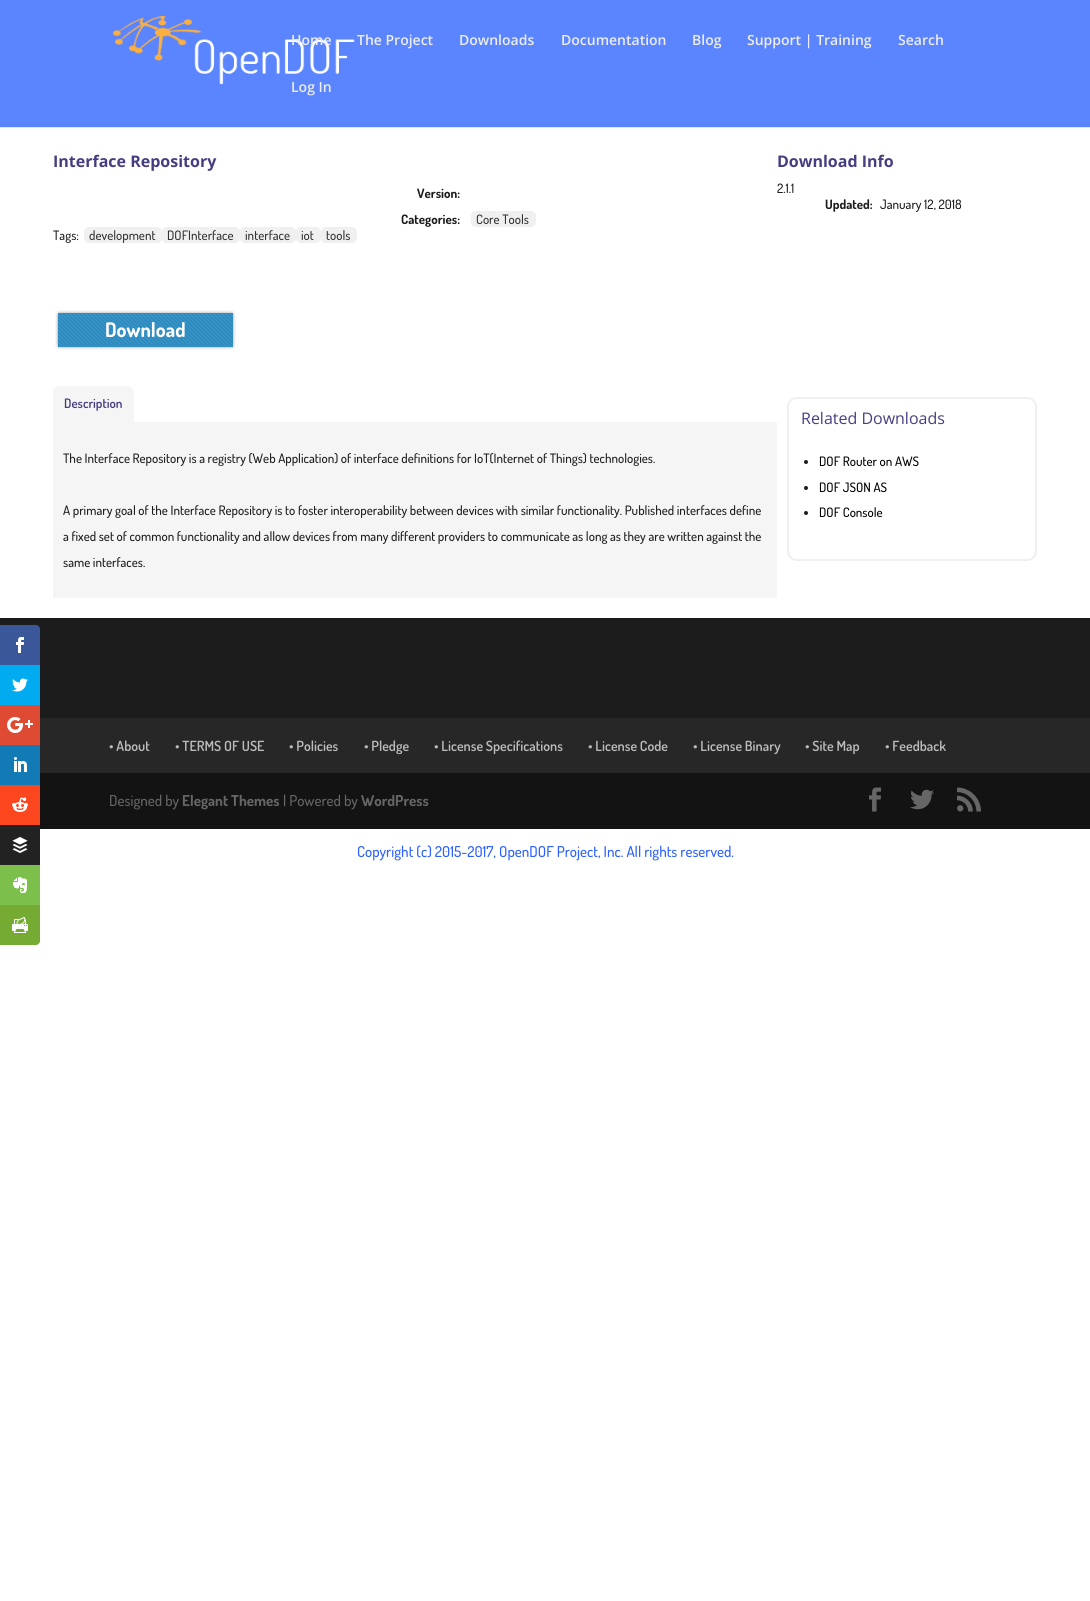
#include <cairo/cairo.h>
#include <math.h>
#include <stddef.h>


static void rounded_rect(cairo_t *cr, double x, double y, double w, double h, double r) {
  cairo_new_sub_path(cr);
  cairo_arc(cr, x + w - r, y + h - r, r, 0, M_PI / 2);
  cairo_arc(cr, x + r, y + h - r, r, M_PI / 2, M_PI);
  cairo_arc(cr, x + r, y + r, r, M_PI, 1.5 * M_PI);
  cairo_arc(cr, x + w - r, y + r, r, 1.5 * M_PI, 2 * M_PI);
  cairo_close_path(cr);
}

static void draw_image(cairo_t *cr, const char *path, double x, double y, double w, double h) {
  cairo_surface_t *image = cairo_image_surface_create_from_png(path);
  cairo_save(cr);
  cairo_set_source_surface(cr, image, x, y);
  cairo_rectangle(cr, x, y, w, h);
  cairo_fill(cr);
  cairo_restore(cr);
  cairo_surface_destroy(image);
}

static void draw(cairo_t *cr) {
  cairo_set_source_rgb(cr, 1, 1, 1);
  cairo_paint(cr);
  cairo_set_source_rgb(cr, 28 / 255.0, 28 / 255.0, 28 / 255.0);
  cairo_rectangle(cr, 0, 618, 1090, 100);
  cairo_fill(cr);
  cairo_set_source_rgb(cr, 58 / 255.0, 87 / 255.0, 154 / 255.0);
  cairo_new_path(cr);
  cairo_move_to(cr, 0, 625);
  cairo_line_to(cr, 36, 625);
  cairo_curve_to(cr, 38, 625, 40, 627, 40, 629);
  cairo_line_to(cr, 40, 665);
  cairo_line_to(cr, 0, 665);
  cairo_close_path(cr);
  cairo_fill(cr);
  draw_image(cr, "images/1.png", 16, 637, 8, 16);
  cairo_set_source_rgb(cr, 0, 171 / 255.0, 240 / 255.0);
  cairo_rectangle(cr, 0, 665, 40, 40);
  cairo_fill(cr);
  draw_image(cr, "images/2.png", 12, 678, 16, 14);
  cairo_set_source_rgb(cr, 223 / 255.0, 74 / 255.0, 50 / 255.0);
  cairo_rectangle(cr, 0, 705, 40, 40);
  cairo_fill(cr);
  draw_image(cr, "images/3.png", 7, 717, 26, 16);
  cairo_set_source_rgb(cr, 18 / 255.0, 123 / 255.0, 182 / 255.0);
  cairo_rectangle(cr, 0, 745, 40, 40);
  cairo_fill(cr);
  draw_image(cr, "images/4.png", 14, 757, 13, 15);
  cairo_set_source_rgb(cr, 252 / 255.0, 70 / 255.0, 30 / 255.0);
  cairo_rectangle(cr, 0, 785, 40, 40);
  cairo_fill(cr);
  draw_image(cr, "images/5.png", 12, 797, 16, 15);
  cairo_set_source_rgb(cr, 34 / 255.0, 34 / 255.0, 34 / 255.0);
  cairo_rectangle(cr, 0, 825, 40, 40);
  cairo_fill(cr);
  draw_image(cr, "images/6.png", 12, 837, 16, 16);
  cairo_set_source_rgb(cr, 124 / 255.0, 191 / 255.0, 75 / 255.0);
  cairo_rectangle(cr, 0, 865, 40, 40);
  cairo_fill(cr);
  draw_image(cr, "images/7.png", 13, 877, 14, 16);
  cairo_set_source_rgb(cr, 117 / 255.0, 170 / 255.0, 51 / 255.0);
  cairo_new_path(cr);
  cairo_move_to(cr, 0, 905);
  cairo_line_to(cr, 40, 905);
  cairo_line_to(cr, 40, 941);
  cairo_curve_to(cr, 40, 943, 38, 945, 36, 945);
  cairo_line_to(cr, 0, 945);
  cairo_close_path(cr);
  cairo_fill(cr);
  draw_image(cr, "images/8.png", 12, 917, 16, 16);
  cairo_set_source_rgb(cr, 230 / 255.0, 230 / 255.0, 230 / 255.0);
  cairo_rectangle(cr, 0, 127, 1090, 1);
  cairo_fill(cr);
  cairo_set_source_rgb(cr, 91 / 255.0, 133 / 255.0, 1);
  cairo_rectangle(cr, 0, 0, 1090, 127);
  cairo_fill(cr);
  draw_image(cr, "images/9.png", 113, 16, 242, 69);
  cairo_set_source_rgb(cr, 240 / 255.0, 240 / 255.0, 240 / 255.0);
  rounded_rect(cr, 471, 211, 65, 16, 5);
  cairo_fill(cr);
  rounded_rect(cr, 84, 227, 78, 16, 5);
  cairo_fill(cr);
  rounded_rect(cr, 162, 227, 78, 16, 5);
  cairo_fill(cr);
  rounded_rect(cr, 240, 227, 56, 16, 5);
  cairo_fill(cr);
  rounded_rect(cr, 296, 227, 25, 16, 5);
  cairo_fill(cr);
  rounded_rect(cr, 321, 227, 36, 16, 5);
  cairo_fill(cr);
  draw_image(cr, "images/10.png", 55, 310, 181, 40);
  cairo_set_source_rgb(cr, 245 / 255.0, 245 / 255.0, 245 / 255.0);
  rounded_rect(cr, 53, 386, 81, 51, 7);
  cairo_fill(cr);
  cairo_rectangle(cr, 53, 422, 724, 176);
  cairo_fill(cr);
  rounded_rect(cr, 788, 398, 248, 162, 9);
  cairo_set_source_rgb(cr, 240 / 255.0, 240 / 255.0, 240 / 255.0);
  cairo_stroke(cr);
  cairo_set_source_rgb(cr, 28 / 255.0, 28 / 255.0, 28 / 255.0);
  cairo_arc(cr, 806, 462, 2, 0, 2 * M_PI);
  cairo_fill(cr);
  cairo_arc(cr, 806, 488, 2, 0, 2 * M_PI);
  cairo_fill(cr);
  cairo_arc(cr, 806, 513, 2, 0, 2 * M_PI);
  cairo_fill(cr);
  cairo_set_source_rgb(cr, 39 / 255.0, 39 / 255.0, 39 / 255.0);
  cairo_rectangle(cr, 40, 718, 1050, 55);
  cairo_fill(cr);
  cairo_set_source_rgb(cr, 19 / 255.0, 19 / 255.0, 19 / 255.0);
  cairo_rectangle(cr, 40, 773, 1050, 56);
  cairo_fill(cr);
  draw_image(cr, "images/11.png", 869, 787, 12, 25);
  draw_image(cr, "images/12.png", 910, 789, 24, 21);
  draw_image(cr, "images/13.png", 957, 787, 24, 25);
  cairo_select_font_face(cr, "Open Sans SemiBold", CAIRO_FONT_SLANT_NORMAL, CAIRO_FONT_WEIGHT_NORMAL);
  cairo_set_font_size(cr, 14);
  cairo_set_source_rgb(cr, 237 / 255.0, 237 / 255.0, 237 / 255.0);
  cairo_move_to(cr, 291, 45);
  cairo_show_text(cr, "Home");
  cairo_move_to(cr, 357, 45);
  cairo_show_text(cr, "The Project");
  cairo_move_to(cr, 459, 45);
  cairo_show_text(cr, "Downloads");
  cairo_move_to(cr, 561, 45);
  cairo_show_text(cr, "Documentation");
  cairo_move_to(cr, 692, 45);
  cairo_show_text(cr, "Blog");
  cairo_move_to(cr, 747, 45);
  cairo_show_text(cr, "Support | Training");
  cairo_move_to(cr, 898, 45);
  cairo_show_text(cr, "Search");
  cairo_move_to(cr, 291, 92);
  cairo_show_text(cr, "Log In");
  cairo_select_font_face(cr, "Open Sans", CAIRO_FONT_SLANT_NORMAL, CAIRO_FONT_WEIGHT_BOLD);
  cairo_set_font_size(cr, 16);
  cairo_set_source_rgb(cr, 71 / 255.0, 62 / 255.0, 130 / 255.0);
  cairo_move_to(cr, 777, 167);
  cairo_show_text(cr, "Download Info");
  cairo_select_font_face(cr, "Dosis", CAIRO_FONT_SLANT_NORMAL, CAIRO_FONT_WEIGHT_BOLD);
  cairo_set_font_size(cr, 13);
  cairo_set_source_rgb(cr, 28 / 255.0, 28 / 255.0, 28 / 255.0);
  cairo_move_to(cr, 417, 198);
  cairo_show_text(cr, "Version:");
  cairo_select_font_face(cr, "Dosis Medium", CAIRO_FONT_SLANT_NORMAL, CAIRO_FONT_WEIGHT_NORMAL);
  cairo_move_to(cr, 777, 193);
  cairo_show_text(cr, "2.1.1");
  cairo_select_font_face(cr, "Dosis", CAIRO_FONT_SLANT_NORMAL, CAIRO_FONT_WEIGHT_BOLD);
  cairo_move_to(cr, 825, 209);
  cairo_show_text(cr, "Updated:");
  cairo_select_font_face(cr, "Dosis Medium", CAIRO_FONT_SLANT_NORMAL, CAIRO_FONT_WEIGHT_NORMAL);
  cairo_move_to(cr, 880, 209);
  cairo_show_text(cr, "January 12, 2018");
  cairo_select_font_face(cr, "Dosis", CAIRO_FONT_SLANT_NORMAL, CAIRO_FONT_WEIGHT_BOLD);
  cairo_move_to(cr, 401, 224);
  cairo_show_text(cr, "Categories:");
  cairo_select_font_face(cr, "Dosis Medium", CAIRO_FONT_SLANT_NORMAL, CAIRO_FONT_WEIGHT_NORMAL);
  cairo_set_source_rgb(cr, 51 / 255.0, 51 / 255.0, 51 / 255.0);
  cairo_move_to(cr, 476, 224);
  cairo_show_text(cr, "Core Tools");
  cairo_set_source_rgb(cr, 28 / 255.0, 28 / 255.0, 28 / 255.0);
  cairo_move_to(cr, 53, 240);
  cairo_show_text(cr, "Tags:");
  cairo_set_source_rgb(cr, 51 / 255.0, 51 / 255.0, 51 / 255.0);
  cairo_move_to(cr, 89, 240);
  cairo_show_text(cr, "development");
  cairo_move_to(cr, 167, 240);
  cairo_show_text(cr, "DOFInterface");
  cairo_move_to(cr, 245, 240);
  cairo_show_text(cr, "interface");
  cairo_move_to(cr, 301, 240);
  cairo_show_text(cr, "iot");
  cairo_move_to(cr, 326, 240);
  cairo_show_text(cr, "tools");
  cairo_select_font_face(cr, "Dosis", CAIRO_FONT_SLANT_NORMAL, CAIRO_FONT_WEIGHT_BOLD);
  cairo_set_font_size(cr, 20);
  cairo_set_source_rgb(cr, 1, 1, 1);
  cairo_move_to(cr, 105, 337);
  cairo_show_text(cr, "Download");
  cairo_select_font_face(cr, "Open Sans", CAIRO_FONT_SLANT_NORMAL, CAIRO_FONT_WEIGHT_BOLD);
  cairo_set_font_size(cr, 16);
  cairo_set_source_rgb(cr, 71 / 255.0, 62 / 255.0, 130 / 255.0);
  cairo_move_to(cr, 53, 167);
  cairo_show_text(cr, "Interface Repository");
  cairo_select_font_face(cr, "Dosis SemiBold", CAIRO_FONT_SLANT_NORMAL, CAIRO_FONT_WEIGHT_NORMAL);
  cairo_set_font_size(cr, 13);
  cairo_move_to(cr, 64, 408);
  cairo_show_text(cr, "Description");
  cairo_select_font_face(cr, "Dosis Medium", CAIRO_FONT_SLANT_NORMAL, CAIRO_FONT_WEIGHT_NORMAL);
  cairo_set_source_rgb(cr, 28 / 255.0, 28 / 255.0, 28 / 255.0);
  cairo_move_to(cr, 63, 463);
  cairo_show_text(cr, "The Interface Repository is a registry (Web Application) of interface definitions for IoT(Internet of Things) technologies.");
  cairo_move_to(cr, 63, 515);
  cairo_show_text(cr, "A primary goal of the Interface Repository is to foster interoperability between devices with similar functionality. Published interfaces define");
  cairo_move_to(cr, 63, 541);
  cairo_show_text(cr, "a fixed set of common functionality and allow devices from many different providers to communicate as long as they are written against the");
  cairo_move_to(cr, 63, 567);
  cairo_show_text(cr, "same interfaces.");
  cairo_select_font_face(cr, "Open Sans", CAIRO_FONT_SLANT_NORMAL, CAIRO_FONT_WEIGHT_NORMAL);
  cairo_set_font_size(cr, 16);
  cairo_set_source_rgb(cr, 71 / 255.0, 62 / 255.0, 130 / 255.0);
  cairo_move_to(cr, 801, 424);
  cairo_show_text(cr, "Related Downloads");
  cairo_select_font_face(cr, "Dosis Medium", CAIRO_FONT_SLANT_NORMAL, CAIRO_FONT_WEIGHT_NORMAL);
  cairo_set_font_size(cr, 13);
  cairo_set_source_rgb(cr, 0, 0, 0);
  cairo_move_to(cr, 819, 466);
  cairo_show_text(cr, "DOF Router on AWS");
  cairo_move_to(cr, 819, 492);
  cairo_show_text(cr, "DOF JSON AS");
  cairo_move_to(cr, 819, 517);
  cairo_show_text(cr, "DOF Console");
  cairo_select_font_face(cr, "Dosis SemiBold", CAIRO_FONT_SLANT_NORMAL, CAIRO_FONT_WEIGHT_NORMAL);
  cairo_set_font_size(cr, 14);
  cairo_set_source_rgb(cr, 187 / 255.0, 187 / 255.0, 187 / 255.0);
  cairo_move_to(cr, 109, 751);
  cairo_show_text(cr, "• About");
  cairo_move_to(cr, 175, 751);
  cairo_show_text(cr, "• TERMS OF USE");
  cairo_move_to(cr, 289, 751);
  cairo_show_text(cr, "• Policies");
  cairo_move_to(cr, 364, 751);
  cairo_show_text(cr, "• Pledge");
  cairo_move_to(cr, 434, 751);
  cairo_show_text(cr, "• License Specifications");
  cairo_move_to(cr, 588, 751);
  cairo_show_text(cr, "• License Code");
  cairo_move_to(cr, 693, 751);
  cairo_show_text(cr, "• License Binary");
  cairo_move_to(cr, 805, 751);
  cairo_show_text(cr, "• Site Map");
  cairo_move_to(cr, 885, 751);
  cairo_show_text(cr, "• Feedback");
  cairo_select_font_face(cr, "Dosis Medium", CAIRO_FONT_SLANT_NORMAL, CAIRO_FONT_WEIGHT_NORMAL);
  cairo_set_font_size(cr, 15);
  cairo_set_source_rgb(cr, 102 / 255.0, 102 / 255.0, 102 / 255.0);
  cairo_move_to(cr, 109, 806);
  cairo_show_text(cr, "Designed by");
  cairo_select_font_face(cr, "Dosis", CAIRO_FONT_SLANT_NORMAL, CAIRO_FONT_WEIGHT_BOLD);
  cairo_move_to(cr, 182, 806);
  cairo_show_text(cr, "Elegant Themes");
  cairo_select_font_face(cr, "Dosis Medium", CAIRO_FONT_SLANT_NORMAL, CAIRO_FONT_WEIGHT_NORMAL);
  cairo_move_to(cr, 283, 806);
  cairo_show_text(cr, "| Powered by");
  cairo_select_font_face(cr, "Dosis", CAIRO_FONT_SLANT_NORMAL, CAIRO_FONT_WEIGHT_BOLD);
  cairo_move_to(cr, 361, 806);
  cairo_show_text(cr, "WordPress");
  cairo_select_font_face(cr, "Dosis Medium", CAIRO_FONT_SLANT_NORMAL, CAIRO_FONT_WEIGHT_NORMAL);
  cairo_set_source_rgb(cr, 43 / 255.0, 96 / 255.0, 1);
  cairo_move_to(cr, 357, 857);
  cairo_show_text(cr, "Copyright (c) 2015-2017, OpenDOF Project, Inc. All rights reserved.");
}

int main(void) {
  cairo_surface_t *surface = cairo_image_surface_create(CAIRO_FORMAT_RGB24, 1090, 1601);
  cairo_t *cr = cairo_create(surface);
  cairo_font_options_t *options = cairo_font_options_create();
  cairo_font_options_set_hint_metrics(options, CAIRO_HINT_METRICS_OFF);
  cairo_font_options_set_hint_style(options, CAIRO_HINT_STYLE_NONE);
  cairo_set_font_options(cr, options);
  cairo_set_miter_limit(cr, 4);
  draw(cr);
  cairo_surface_write_to_png(surface, "out.png");
  cairo_font_options_destroy(options);
  cairo_destroy(cr);
  cairo_surface_destroy(surface);
  return 0;
}
